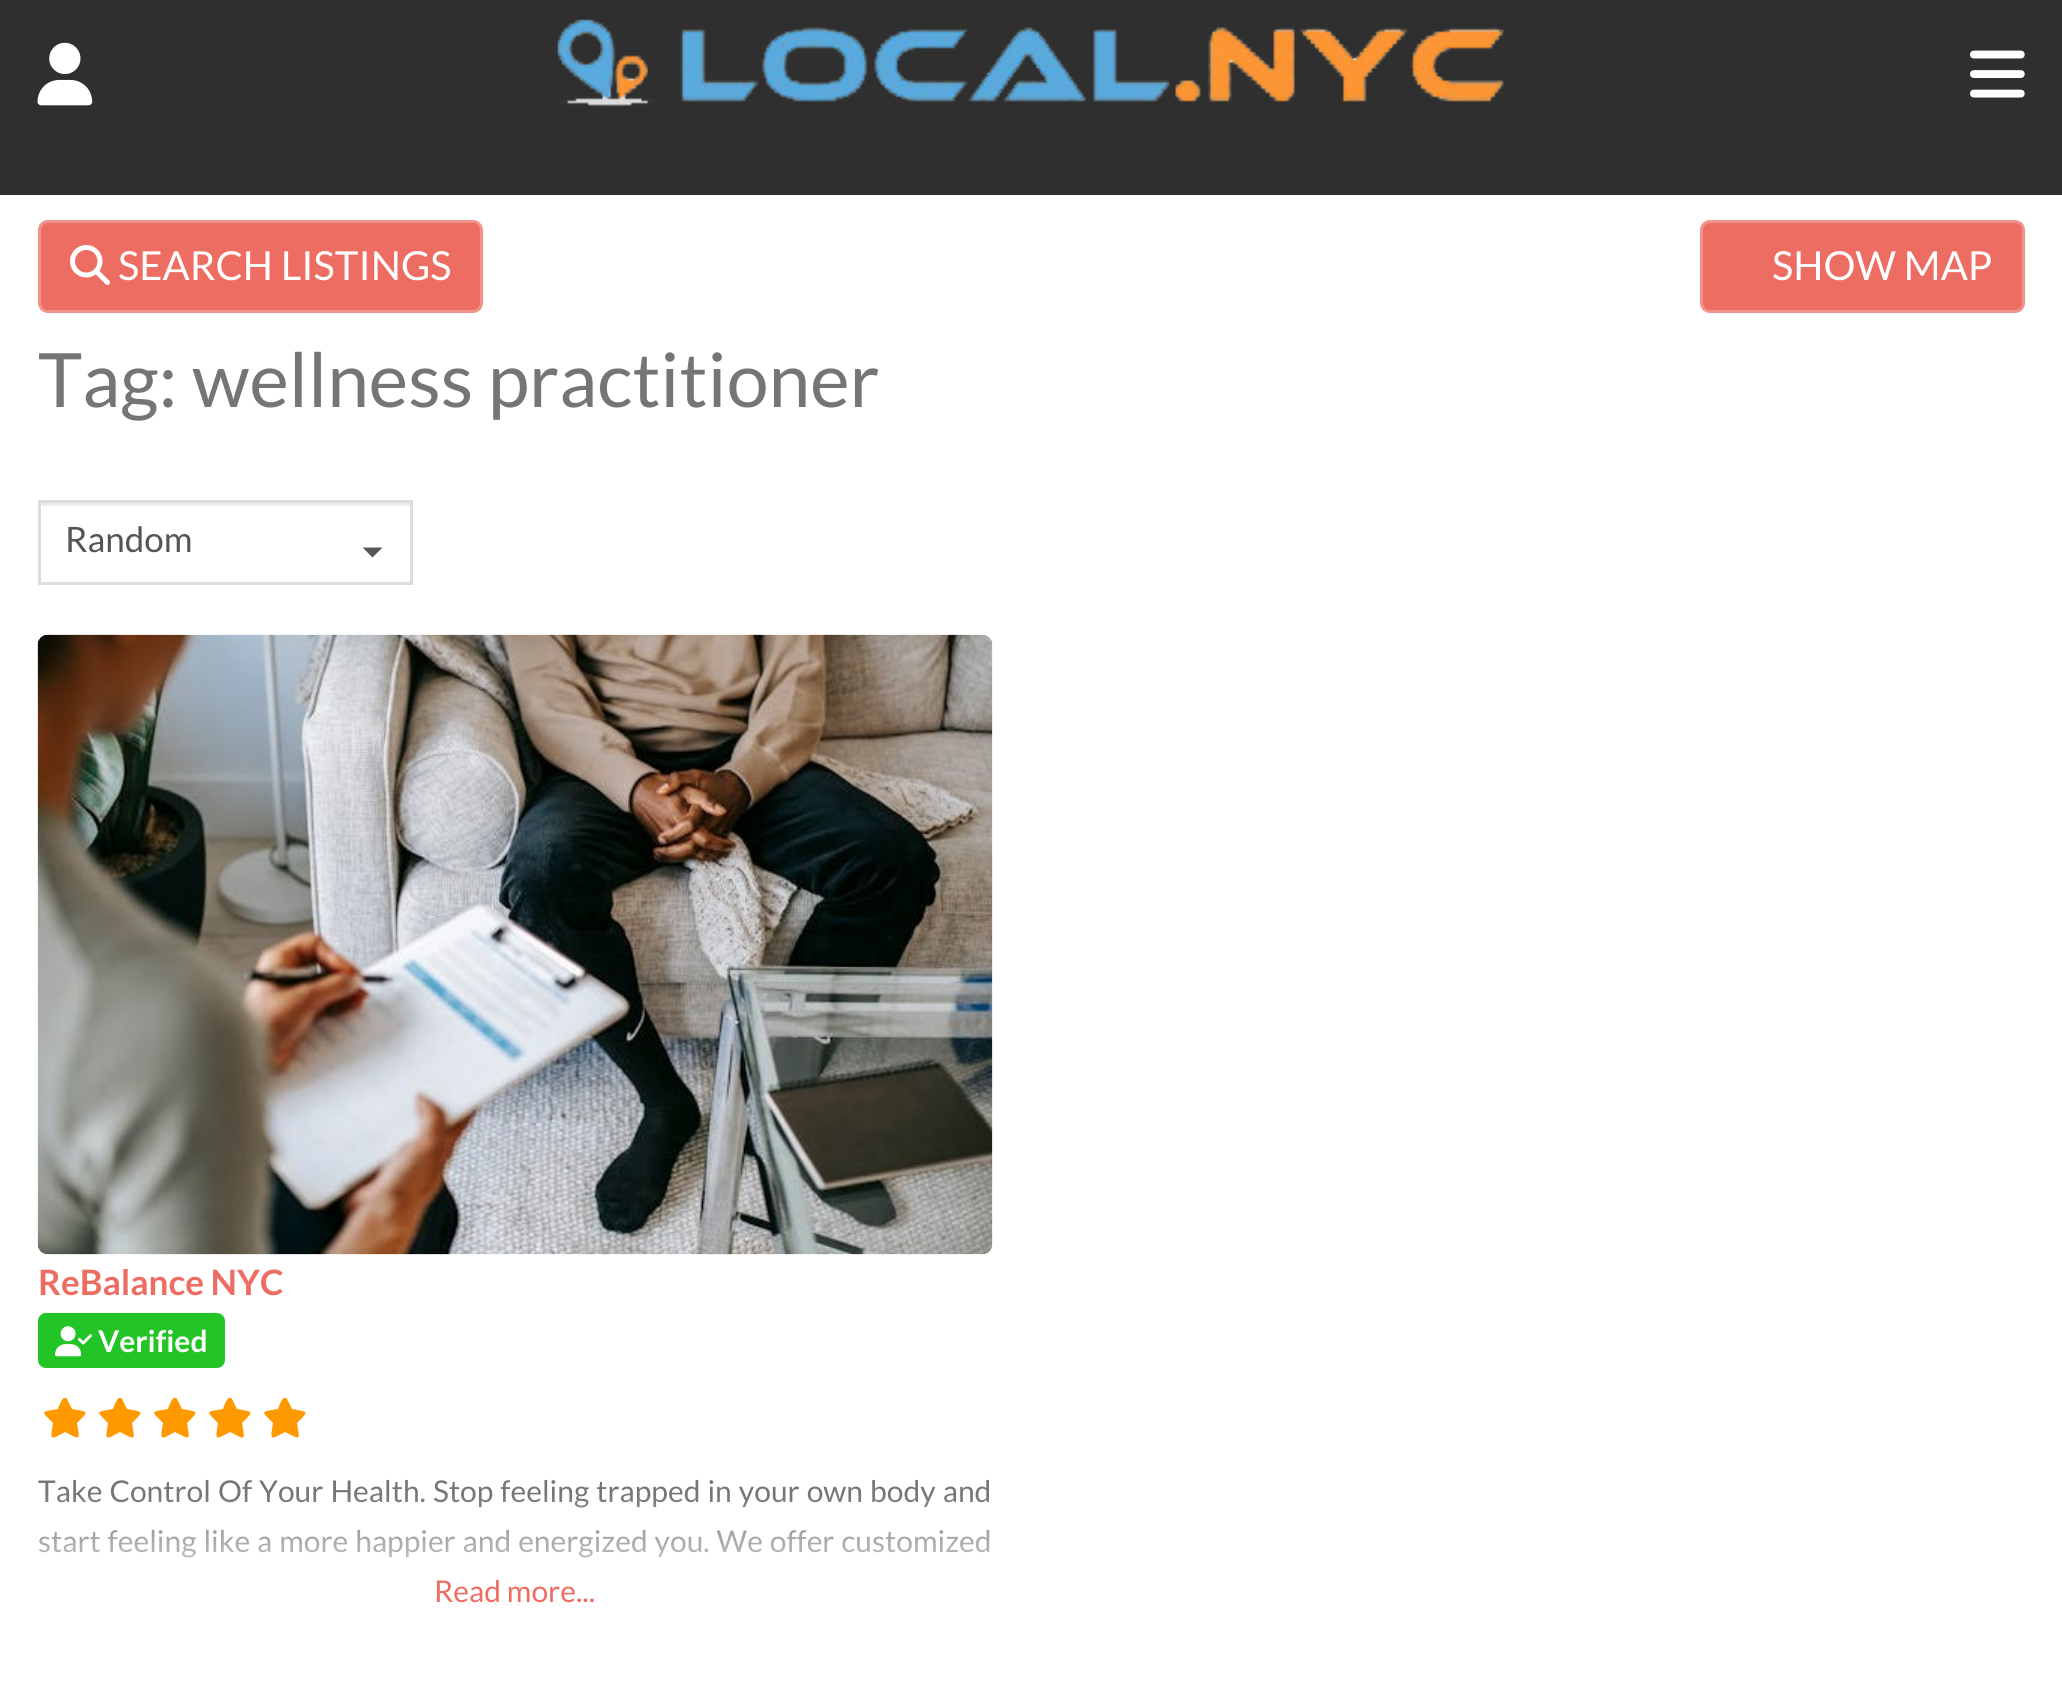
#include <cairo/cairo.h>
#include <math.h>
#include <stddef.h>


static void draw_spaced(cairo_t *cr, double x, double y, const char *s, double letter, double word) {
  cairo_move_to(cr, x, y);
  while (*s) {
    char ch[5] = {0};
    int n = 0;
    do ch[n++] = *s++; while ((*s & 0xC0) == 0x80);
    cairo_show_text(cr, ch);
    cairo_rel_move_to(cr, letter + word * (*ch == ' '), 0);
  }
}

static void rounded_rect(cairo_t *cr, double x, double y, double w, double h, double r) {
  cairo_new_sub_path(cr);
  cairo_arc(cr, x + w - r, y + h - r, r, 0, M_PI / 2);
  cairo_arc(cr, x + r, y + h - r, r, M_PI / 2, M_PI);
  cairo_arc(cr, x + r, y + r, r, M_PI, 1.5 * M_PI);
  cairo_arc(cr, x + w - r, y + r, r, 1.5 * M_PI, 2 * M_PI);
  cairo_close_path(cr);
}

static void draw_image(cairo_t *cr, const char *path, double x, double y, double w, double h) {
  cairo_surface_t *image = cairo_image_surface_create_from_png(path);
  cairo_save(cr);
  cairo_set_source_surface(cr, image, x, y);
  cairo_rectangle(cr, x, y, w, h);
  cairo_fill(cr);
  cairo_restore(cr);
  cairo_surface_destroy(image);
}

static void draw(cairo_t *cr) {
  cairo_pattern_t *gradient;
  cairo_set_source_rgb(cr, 1, 1, 1);
  cairo_paint(cr);
  cairo_set_source_rgb(cr, 47 / 255.0, 47 / 255.0, 47 / 255.0);
  cairo_rectangle(cr, 0, 0, 2062, 195);
  cairo_fill(cr);
  draw_image(cr, "images/1.png", 37, 42, 56, 64);
  draw_image(cr, "images/2.png", 557, 19, 948, 88);
  draw_image(cr, "images/3.png", 1970, 50, 55, 48);
  cairo_set_source_rgb(cr, 237 / 255.0, 109 / 255.0, 98 / 255.0);
  rounded_rect(cr, 39.5, 221.5, 442, 90, 8.5);
  cairo_fill_preserve(cr);
  cairo_set_source_rgb(cr, 242 / 255.0, 147 / 255.0, 139 / 255.0);
  cairo_set_line_width(cr, 3);
  cairo_stroke(cr);
  draw_image(cr, "images/4.png", 70, 245, 40, 40);
  cairo_set_source_rgb(cr, 237 / 255.0, 109 / 255.0, 98 / 255.0);
  rounded_rect(cr, 1701.5, 221.5, 322, 90, 8.5);
  cairo_fill_preserve(cr);
  cairo_set_source_rgb(cr, 242 / 255.0, 147 / 255.0, 139 / 255.0);
  cairo_stroke(cr);
  cairo_set_source_rgb(cr, 236 / 255.0, 236 / 255.0, 236 / 255.0);
  cairo_rectangle(cr, 40, 503, 370, 3);
  cairo_fill(cr);
  cairo_rectangle(cr, 39.5, 501.5, 372, 82);
  cairo_set_source_rgb(cr, 221 / 255.0, 221 / 255.0, 221 / 255.0);
  cairo_stroke(cr);
  cairo_set_source_rgb(cr, 85 / 255.0, 85 / 255.0, 85 / 255.0);
  cairo_new_path(cr);
  cairo_move_to(cr, 362.5, 547.5);
  cairo_line_to(cr, 382.5, 547.5);
  cairo_line_to(cr, 372.5, 557.5);
  cairo_close_path(cr);
  cairo_fill(cr);
  draw_image(cr, "images/5.png", 37, 634, 956, 621);
  cairo_set_source_rgb(cr, 35 / 255.0, 197 / 255.0, 38 / 255.0);
  rounded_rect(cr, 38, 1313, 187, 55, 8);
  cairo_fill(cr);
  draw_image(cr, "images/6.png", 55, 1326, 37, 31);
  cairo_save(cr);
  cairo_rectangle(cr, 40, 1398, 275, 40);
  cairo_clip(cr);
  cairo_set_source_rgb(cr, 1, 153 / 255.0, 0);
  cairo_new_path(cr);
  cairo_move_to(cr, 67, 1399);
  cairo_curve_to(cr, 64, 1392, 58, 1408, 58, 1409);
  cairo_curve_to(cr, 40, 1412, 41, 1411, 53, 1423);
  cairo_curve_to(cr, 50, 1441, 50, 1440, 65, 1432);
  cairo_curve_to(cr, 81, 1440, 80, 1441, 77, 1423);
  cairo_curve_to(cr, 89, 1411, 89, 1412, 72, 1409);
  cairo_close_path(cr);
  cairo_fill(cr);
  cairo_new_path(cr);
  cairo_move_to(cr, 122, 1399);
  cairo_curve_to(cr, 119, 1392, 113, 1408, 113, 1409);
  cairo_curve_to(cr, 95, 1412, 96, 1411, 108, 1423);
  cairo_curve_to(cr, 105, 1441, 105, 1440, 120, 1432);
  cairo_curve_to(cr, 136, 1440, 135, 1441, 132, 1423);
  cairo_curve_to(cr, 144, 1411, 144, 1412, 127, 1409);
  cairo_close_path(cr);
  cairo_fill(cr);
  cairo_new_path(cr);
  cairo_move_to(cr, 177, 1399);
  cairo_curve_to(cr, 174, 1392, 168, 1408, 168, 1409);
  cairo_curve_to(cr, 150, 1412, 151, 1411, 163, 1423);
  cairo_curve_to(cr, 160, 1441, 160, 1440, 175, 1432);
  cairo_curve_to(cr, 191, 1440, 190, 1441, 187, 1423);
  cairo_curve_to(cr, 199, 1411, 199, 1412, 182, 1409);
  cairo_close_path(cr);
  cairo_fill(cr);
  cairo_new_path(cr);
  cairo_move_to(cr, 232, 1399);
  cairo_curve_to(cr, 229, 1392, 223, 1408, 223, 1409);
  cairo_curve_to(cr, 205, 1412, 206, 1411, 218, 1423);
  cairo_curve_to(cr, 215, 1441, 215, 1440, 230, 1432);
  cairo_curve_to(cr, 246, 1440, 245, 1441, 242, 1423);
  cairo_curve_to(cr, 254, 1411, 254, 1412, 237, 1409);
  cairo_close_path(cr);
  cairo_fill(cr);
  cairo_new_path(cr);
  cairo_move_to(cr, 287, 1399);
  cairo_curve_to(cr, 284, 1392, 278, 1408, 278, 1409);
  cairo_curve_to(cr, 260, 1412, 261, 1411, 273, 1423);
  cairo_curve_to(cr, 270, 1441, 270, 1440, 285, 1432);
  cairo_curve_to(cr, 301, 1440, 300, 1441, 297, 1423);
  cairo_curve_to(cr, 309, 1411, 309, 1412, 292, 1409);
  cairo_close_path(cr);
  cairo_fill(cr);
  cairo_restore(cr);
  cairo_select_font_face(cr, "Lato", CAIRO_FONT_SLANT_NORMAL, CAIRO_FONT_WEIGHT_NORMAL);
  cairo_set_font_size(cr, 40);
  cairo_set_source_rgb(cr, 1, 1, 1);
  cairo_move_to(cr, 118, 280);
  cairo_show_text(cr, "SEARCH LISTINGS");
  cairo_move_to(cr, 1772, 280);
  cairo_show_text(cr, "SHOW MAP");
  cairo_set_font_size(cr, 75);
  cairo_set_source_rgb(cr, 117 / 255.0, 117 / 255.0, 117 / 255.0);
  cairo_move_to(cr, 38, 407);
  cairo_show_text(cr, "Tag: wellness practitioner");
  cairo_set_font_size(cr, 35);
  cairo_set_source_rgb(cr, 85 / 255.0, 85 / 255.0, 85 / 255.0);
  cairo_move_to(cr, 65, 552);
  cairo_show_text(cr, "Random");
  cairo_select_font_face(cr, "Lato", CAIRO_FONT_SLANT_NORMAL, CAIRO_FONT_WEIGHT_BOLD);
  cairo_set_source_rgb(cr, 237 / 255.0, 109 / 255.0, 98 / 255.0);
  cairo_move_to(cr, 38, 1295);
  cairo_show_text(cr, "ReBalance NYC");
  cairo_set_font_size(cr, 30);
  cairo_set_source_rgb(cr, 1, 1, 1);
  cairo_move_to(cr, 98, 1352);
  cairo_show_text(cr, "Verified");
  cairo_select_font_face(cr, "Lato", CAIRO_FONT_SLANT_NORMAL, CAIRO_FONT_WEIGHT_NORMAL);
  cairo_set_source_rgb(cr, 117 / 255.0, 117 / 255.0, 117 / 255.0);
  draw_spaced(cr, 38, 1502, "Take Control Of Your Health. Stop feeling trapped in your own body and", 0, 1.25);
  draw_spaced(cr, 38, 1552, "start feeling like a more happier and energized you. We offer customized", 0, 1.1);
  gradient = cairo_pattern_create_linear(515, 1493, 515, 1618);
  cairo_pattern_add_color_stop_rgba(gradient, 0, 1, 1, 1, 0);
  cairo_pattern_add_color_stop_rgba(gradient, 1, 1, 1, 1, 1);
  cairo_set_source(cr, gradient);
  cairo_pattern_destroy(gradient);
  cairo_rectangle(cr, 38, 1496, 952, 62);
  cairo_fill(cr);
  cairo_set_source_rgb(cr, 237 / 255.0, 109 / 255.0, 98 / 255.0);
  cairo_move_to(cr, 434, 1602);
  cairo_show_text(cr, "Read more...");
}

int main(void) {
  cairo_surface_t *surface = cairo_image_surface_create(CAIRO_FORMAT_RGB24, 2062, 1686);
  cairo_t *cr = cairo_create(surface);
  cairo_font_options_t *options = cairo_font_options_create();
  cairo_font_options_set_hint_metrics(options, CAIRO_HINT_METRICS_OFF);
  cairo_font_options_set_hint_style(options, CAIRO_HINT_STYLE_NONE);
  cairo_set_font_options(cr, options);
  cairo_set_miter_limit(cr, 4);
  draw(cr);
  cairo_surface_write_to_png(surface, "out.png");
  cairo_font_options_destroy(options);
  cairo_destroy(cr);
  cairo_surface_destroy(surface);
  return 0;
}
